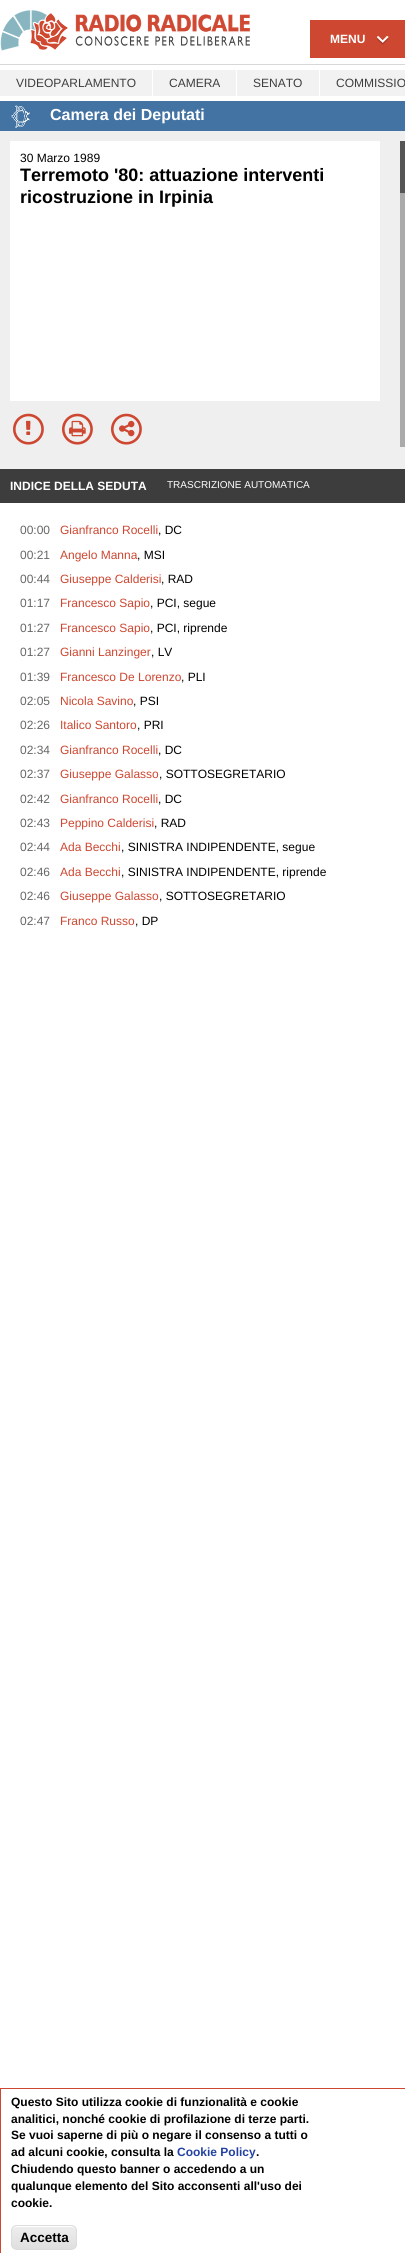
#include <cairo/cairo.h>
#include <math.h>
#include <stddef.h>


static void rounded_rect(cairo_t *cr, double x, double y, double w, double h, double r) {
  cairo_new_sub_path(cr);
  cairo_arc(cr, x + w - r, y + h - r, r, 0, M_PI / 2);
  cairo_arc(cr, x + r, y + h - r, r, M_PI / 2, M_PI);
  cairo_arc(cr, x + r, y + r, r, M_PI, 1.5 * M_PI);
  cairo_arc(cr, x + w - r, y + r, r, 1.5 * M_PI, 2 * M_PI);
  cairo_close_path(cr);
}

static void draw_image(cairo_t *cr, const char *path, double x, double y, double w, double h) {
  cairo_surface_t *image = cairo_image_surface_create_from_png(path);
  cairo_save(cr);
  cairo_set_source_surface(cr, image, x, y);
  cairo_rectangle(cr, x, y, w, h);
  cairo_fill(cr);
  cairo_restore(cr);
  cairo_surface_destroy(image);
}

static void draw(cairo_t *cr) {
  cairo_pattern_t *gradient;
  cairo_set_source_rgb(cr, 1, 1, 1);
  cairo_paint(cr);
  cairo_set_source_rgb(cr, 215 / 255.0, 215 / 255.0, 215 / 255.0);
  cairo_rectangle(cr, 0, 64, 405, 1);
  cairo_fill(cr);
  draw_image(cr, "images/1.png", 0, 10, 250, 41);
  cairo_set_source_rgb(cr, 205 / 255.0, 71 / 255.0, 49 / 255.0);
  cairo_rectangle(cr, 310, 20, 95, 38);
  cairo_fill(cr);
  draw_image(cr, "images/2.png", 377, 36, 12, 9);
  cairo_set_source_rgb(cr, 242 / 255.0, 242 / 255.0, 242 / 255.0);
  cairo_rectangle(cr, 0, 70, 405, 26);
  cairo_fill(cr);
  cairo_set_source_rgb(cr, 1, 1, 1);
  cairo_rectangle(cr, 152, 70, 1, 26);
  cairo_fill(cr);
  cairo_rectangle(cr, 236, 70, 1, 26);
  cairo_fill(cr);
  cairo_rectangle(cr, 319, 70, 1, 26);
  cairo_fill(cr);
  cairo_set_source_rgb(cr, 67 / 255.0, 115 / 255.0, 163 / 255.0);
  cairo_rectangle(cr, 0, 101, 405, 30);
  cairo_fill(cr);
  draw_image(cr, "images/3.png", 11, 105, 19, 23);
  cairo_set_source_rgb(cr, 239 / 255.0, 239 / 255.0, 239 / 255.0);
  cairo_rectangle(cr, 0, 131, 405, 338);
  cairo_fill(cr);
  cairo_set_source_rgb(cr, 1, 1, 1);
  cairo_rectangle(cr, 10, 141, 370, 260);
  cairo_fill(cr);
  draw_image(cr, "images/4.png", 13, 413, 31, 32);
  draw_image(cr, "images/5.png", 26, 420, 5, 15);
  draw_image(cr, "images/4.png", 62, 413, 31, 32);
  draw_image(cr, "images/6.png", 69, 420, 17, 17);
  draw_image(cr, "images/4.png", 111, 413, 31, 32);
  draw_image(cr, "images/7.png", 119, 420, 16, 17);
  cairo_set_source_rgb(cr, 170 / 255.0, 170 / 255.0, 170 / 255.0);
  cairo_rectangle(cr, 400, 193, 5, 254);
  cairo_fill(cr);
  cairo_set_source_rgb(cr, 85 / 255.0, 85 / 255.0, 85 / 255.0);
  cairo_rectangle(cr, 400, 141, 5, 52);
  cairo_fill(cr);
  cairo_set_source_rgb(cr, 61 / 255.0, 61 / 255.0, 61 / 255.0);
  cairo_rectangle(cr, 0, 469, 405, 34);
  cairo_fill(cr);
  cairo_rectangle(cr, 0.5, 2088.5, 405, 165);
  cairo_set_source_rgb(cr, 205 / 255.0, 71 / 255.0, 49 / 255.0);
  cairo_set_line_width(cr, 1);
  cairo_stroke(cr);
  cairo_save(cr);
  rounded_rect(cr, 11, 2225, 66, 25, 6);
  cairo_clip(cr);
  gradient = cairo_pattern_create_linear(44, 2226, 44, 2249);
  cairo_pattern_add_color_stop_rgba(gradient, 0.05, 237 / 255.0, 237 / 255.0, 237 / 255.0, 1);
  cairo_pattern_add_color_stop_rgba(gradient, 1, 223 / 255.0, 223 / 255.0, 223 / 255.0, 1);
  cairo_set_source(cr, gradient);
  cairo_pattern_destroy(gradient);
  cairo_rectangle(cr, 11, 2226, 66, 23);
  cairo_fill(cr);
  cairo_restore(cr);
  cairo_set_source_rgb(cr, 1, 1, 1);
  cairo_new_path(cr);
  cairo_move_to(cr, 17, 2227);
  cairo_line_to(cr, 71, 2227);
  cairo_curve_to(cr, 74, 2227, 76, 2229, 76, 2232);
  cairo_curve_to(cr, 76, 2224, 68, 2226, 62, 2226);
  cairo_line_to(cr, 26, 2226);
  cairo_curve_to(cr, 20, 2226, 12, 2224, 12, 2232);
  cairo_curve_to(cr, 12, 2229, 14, 2227, 17, 2227);
  cairo_close_path(cr);
  cairo_fill(cr);
  rounded_rect(cr, 11.5, 2225.5, 65, 24, 5.5);
  cairo_set_source_rgb(cr, 220 / 255.0, 220 / 255.0, 220 / 255.0);
  cairo_stroke(cr);
  cairo_select_font_face(cr, "Liberation Sans", CAIRO_FONT_SLANT_NORMAL, CAIRO_FONT_WEIGHT_BOLD);
  cairo_set_font_size(cr, 12);
  cairo_set_source_rgb(cr, 1, 1, 1);
  cairo_move_to(cr, 330, 43);
  cairo_show_text(cr, "MENU");
  cairo_select_font_face(cr, "Liberation Sans", CAIRO_FONT_SLANT_NORMAL, CAIRO_FONT_WEIGHT_NORMAL);
  cairo_set_source_rgb(cr, 62 / 255.0, 62 / 255.0, 62 / 255.0);
  cairo_move_to(cr, 16, 87);
  cairo_show_text(cr, "VIDEOPARLAMENTO");
  cairo_move_to(cr, 169, 87);
  cairo_show_text(cr, "CAMERA");
  cairo_move_to(cr, 253, 87);
  cairo_show_text(cr, "SENATO");
  cairo_move_to(cr, 336, 87);
  cairo_show_text(cr, "COMMISSIO");
  cairo_select_font_face(cr, "Liberation Sans", CAIRO_FONT_SLANT_NORMAL, CAIRO_FONT_WEIGHT_BOLD);
  cairo_set_font_size(cr, 16);
  cairo_set_source_rgb(cr, 1, 1, 1);
  cairo_move_to(cr, 50, 120);
  cairo_show_text(cr, "Camera dei Deputati");
  cairo_select_font_face(cr, "Liberation Sans", CAIRO_FONT_SLANT_NORMAL, CAIRO_FONT_WEIGHT_NORMAL);
  cairo_set_font_size(cr, 12);
  cairo_set_source_rgb(cr, 0, 0, 0);
  cairo_move_to(cr, 20, 162);
  cairo_show_text(cr, "30 Marzo 1989");
  cairo_select_font_face(cr, "Liberation Sans", CAIRO_FONT_SLANT_NORMAL, CAIRO_FONT_WEIGHT_BOLD);
  cairo_set_font_size(cr, 18);
  cairo_move_to(cr, 20, 181);
  cairo_show_text(cr, "Terremoto '80: attuazione interventi");
  cairo_move_to(cr, 20, 203);
  cairo_show_text(cr, "ricostruzione in Irpinia");
  cairo_set_font_size(cr, 12);
  cairo_set_source_rgb(cr, 1, 1, 1);
  cairo_move_to(cr, 10, 490);
  cairo_show_text(cr, "INDICE DELLA SEDUTA");
  cairo_select_font_face(cr, "Liberation Sans", CAIRO_FONT_SLANT_NORMAL, CAIRO_FONT_WEIGHT_NORMAL);
  cairo_set_font_size(cr, 10);
  cairo_move_to(cr, 167, 488);
  cairo_show_text(cr, "TRASCRIZIONE AUTOMATICA");
  cairo_set_font_size(cr, 12);
  cairo_set_source_rgb(cr, 102 / 255.0, 102 / 255.0, 102 / 255.0);
  cairo_move_to(cr, 20, 534);
  cairo_show_text(cr, "00:00");
  cairo_set_source_rgb(cr, 205 / 255.0, 71 / 255.0, 49 / 255.0);
  cairo_move_to(cr, 60, 534);
  cairo_show_text(cr, "Gianfranco Rocelli");
  cairo_set_source_rgb(cr, 0, 0, 0);
  cairo_move_to(cr, 158, 534);
  cairo_show_text(cr, ", DC");
  cairo_set_source_rgb(cr, 102 / 255.0, 102 / 255.0, 102 / 255.0);
  cairo_move_to(cr, 20, 559);
  cairo_show_text(cr, "00:21");
  cairo_set_source_rgb(cr, 205 / 255.0, 71 / 255.0, 49 / 255.0);
  cairo_move_to(cr, 60, 559);
  cairo_show_text(cr, "Angelo Manna");
  cairo_set_source_rgb(cr, 0, 0, 0);
  cairo_move_to(cr, 137, 559);
  cairo_show_text(cr, ", MSI");
  cairo_set_source_rgb(cr, 102 / 255.0, 102 / 255.0, 102 / 255.0);
  cairo_move_to(cr, 20, 583);
  cairo_show_text(cr, "00:44");
  cairo_set_source_rgb(cr, 205 / 255.0, 71 / 255.0, 49 / 255.0);
  cairo_move_to(cr, 60, 583);
  cairo_show_text(cr, "Giuseppe Calderisi");
  cairo_set_source_rgb(cr, 0, 0, 0);
  cairo_move_to(cr, 161, 583);
  cairo_show_text(cr, ", RAD");
  cairo_set_source_rgb(cr, 102 / 255.0, 102 / 255.0, 102 / 255.0);
  cairo_move_to(cr, 20, 607);
  cairo_show_text(cr, "01:17");
  cairo_set_source_rgb(cr, 205 / 255.0, 71 / 255.0, 49 / 255.0);
  cairo_move_to(cr, 60, 607);
  cairo_show_text(cr, "Francesco Sapio");
  cairo_set_source_rgb(cr, 0, 0, 0);
  cairo_move_to(cr, 150, 607);
  cairo_show_text(cr, ", PCI, segue");
  cairo_set_source_rgb(cr, 102 / 255.0, 102 / 255.0, 102 / 255.0);
  cairo_move_to(cr, 20, 632);
  cairo_show_text(cr, "01:27");
  cairo_set_source_rgb(cr, 205 / 255.0, 71 / 255.0, 49 / 255.0);
  cairo_move_to(cr, 60, 632);
  cairo_show_text(cr, "Francesco Sapio");
  cairo_set_source_rgb(cr, 0, 0, 0);
  cairo_move_to(cr, 150, 632);
  cairo_show_text(cr, ", PCI, riprende");
  cairo_set_source_rgb(cr, 102 / 255.0, 102 / 255.0, 102 / 255.0);
  cairo_move_to(cr, 20, 656);
  cairo_show_text(cr, "01:27");
  cairo_set_source_rgb(cr, 205 / 255.0, 71 / 255.0, 49 / 255.0);
  cairo_move_to(cr, 60, 656);
  cairo_show_text(cr, "Gianni Lanzinger");
  cairo_set_source_rgb(cr, 0, 0, 0);
  cairo_move_to(cr, 151, 656);
  cairo_show_text(cr, ", LV");
  cairo_set_source_rgb(cr, 102 / 255.0, 102 / 255.0, 102 / 255.0);
  cairo_move_to(cr, 20, 681);
  cairo_show_text(cr, "01:39");
  cairo_set_source_rgb(cr, 205 / 255.0, 71 / 255.0, 49 / 255.0);
  cairo_move_to(cr, 60, 681);
  cairo_show_text(cr, "Francesco De Lorenzo");
  cairo_set_source_rgb(cr, 0, 0, 0);
  cairo_move_to(cr, 181, 681);
  cairo_show_text(cr, ", PLI");
  cairo_set_source_rgb(cr, 102 / 255.0, 102 / 255.0, 102 / 255.0);
  cairo_move_to(cr, 20, 705);
  cairo_show_text(cr, "02:05");
  cairo_set_source_rgb(cr, 205 / 255.0, 71 / 255.0, 49 / 255.0);
  cairo_move_to(cr, 60, 705);
  cairo_show_text(cr, "Nicola Savino");
  cairo_set_source_rgb(cr, 0, 0, 0);
  cairo_move_to(cr, 133, 705);
  cairo_show_text(cr, ", PSI");
  cairo_set_source_rgb(cr, 102 / 255.0, 102 / 255.0, 102 / 255.0);
  cairo_move_to(cr, 20, 729);
  cairo_show_text(cr, "02:26");
  cairo_set_source_rgb(cr, 205 / 255.0, 71 / 255.0, 49 / 255.0);
  cairo_move_to(cr, 60, 729);
  cairo_show_text(cr, "Italico Santoro");
  cairo_set_source_rgb(cr, 0, 0, 0);
  cairo_move_to(cr, 137, 729);
  cairo_show_text(cr, ", PRI");
  cairo_set_source_rgb(cr, 102 / 255.0, 102 / 255.0, 102 / 255.0);
  cairo_move_to(cr, 20, 754);
  cairo_show_text(cr, "02:34");
  cairo_set_source_rgb(cr, 205 / 255.0, 71 / 255.0, 49 / 255.0);
  cairo_move_to(cr, 60, 754);
  cairo_show_text(cr, "Gianfranco Rocelli");
  cairo_set_source_rgb(cr, 0, 0, 0);
  cairo_move_to(cr, 158, 754);
  cairo_show_text(cr, ", DC");
  cairo_set_source_rgb(cr, 102 / 255.0, 102 / 255.0, 102 / 255.0);
  cairo_move_to(cr, 20, 778);
  cairo_show_text(cr, "02:37");
  cairo_set_source_rgb(cr, 205 / 255.0, 71 / 255.0, 49 / 255.0);
  cairo_move_to(cr, 60, 778);
  cairo_show_text(cr, "Giuseppe Galasso");
  cairo_set_source_rgb(cr, 0, 0, 0);
  cairo_move_to(cr, 159, 778);
  cairo_show_text(cr, ", SOTTOSEGRETARIO");
  cairo_set_source_rgb(cr, 102 / 255.0, 102 / 255.0, 102 / 255.0);
  cairo_move_to(cr, 20, 803);
  cairo_show_text(cr, "02:42");
  cairo_set_source_rgb(cr, 205 / 255.0, 71 / 255.0, 49 / 255.0);
  cairo_move_to(cr, 60, 803);
  cairo_show_text(cr, "Gianfranco Rocelli");
  cairo_set_source_rgb(cr, 0, 0, 0);
  cairo_move_to(cr, 158, 803);
  cairo_show_text(cr, ", DC");
  cairo_set_source_rgb(cr, 102 / 255.0, 102 / 255.0, 102 / 255.0);
  cairo_move_to(cr, 20, 827);
  cairo_show_text(cr, "02:43");
  cairo_set_source_rgb(cr, 205 / 255.0, 71 / 255.0, 49 / 255.0);
  cairo_move_to(cr, 60, 827);
  cairo_show_text(cr, "Peppino Calderisi");
  cairo_set_source_rgb(cr, 0, 0, 0);
  cairo_move_to(cr, 154, 827);
  cairo_show_text(cr, ", RAD");
  cairo_set_source_rgb(cr, 102 / 255.0, 102 / 255.0, 102 / 255.0);
  cairo_move_to(cr, 20, 851);
  cairo_show_text(cr, "02:44");
  cairo_set_source_rgb(cr, 205 / 255.0, 71 / 255.0, 49 / 255.0);
  cairo_move_to(cr, 60, 851);
  cairo_show_text(cr, "Ada Becchi");
  cairo_set_source_rgb(cr, 0, 0, 0);
  cairo_move_to(cr, 121, 851);
  cairo_show_text(cr, ", SINISTRA INDIPENDENTE, segue");
  cairo_set_source_rgb(cr, 102 / 255.0, 102 / 255.0, 102 / 255.0);
  cairo_move_to(cr, 20, 876);
  cairo_show_text(cr, "02:46");
  cairo_set_source_rgb(cr, 205 / 255.0, 71 / 255.0, 49 / 255.0);
  cairo_move_to(cr, 60, 876);
  cairo_show_text(cr, "Ada Becchi");
  cairo_set_source_rgb(cr, 0, 0, 0);
  cairo_move_to(cr, 121, 876);
  cairo_show_text(cr, ", SINISTRA INDIPENDENTE, riprende");
  cairo_set_source_rgb(cr, 102 / 255.0, 102 / 255.0, 102 / 255.0);
  cairo_move_to(cr, 20, 900);
  cairo_show_text(cr, "02:46");
  cairo_set_source_rgb(cr, 205 / 255.0, 71 / 255.0, 49 / 255.0);
  cairo_move_to(cr, 60, 900);
  cairo_show_text(cr, "Giuseppe Galasso");
  cairo_set_source_rgb(cr, 0, 0, 0);
  cairo_move_to(cr, 159, 900);
  cairo_show_text(cr, ", SOTTOSEGRETARIO");
  cairo_set_source_rgb(cr, 102 / 255.0, 102 / 255.0, 102 / 255.0);
  cairo_move_to(cr, 20, 925);
  cairo_show_text(cr, "02:47");
  cairo_set_source_rgb(cr, 205 / 255.0, 71 / 255.0, 49 / 255.0);
  cairo_move_to(cr, 60, 925);
  cairo_show_text(cr, "Franco Russo");
  cairo_set_source_rgb(cr, 0, 0, 0);
  cairo_move_to(cr, 135, 925);
  cairo_show_text(cr, ", DP");
  cairo_select_font_face(cr, "Liberation Sans", CAIRO_FONT_SLANT_NORMAL, CAIRO_FONT_WEIGHT_BOLD);
  cairo_move_to(cr, 11, 2106);
  cairo_show_text(cr, "Questo Sito utilizza cookie di funzionalità e cookie");
  cairo_move_to(cr, 11, 2123);
  cairo_show_text(cr, "analitici, nonché cookie di profilazione di terze parti.");
  cairo_move_to(cr, 11, 2139);
  cairo_show_text(cr, "Se vuoi saperne di più o negare il consenso a tutti o");
  cairo_move_to(cr, 11, 2156);
  cairo_show_text(cr, "ad alcuni cookie, consulta la");
  cairo_set_source_rgb(cr, 36 / 255.0, 66 / 255.0, 162 / 255.0);
  cairo_move_to(cr, 177, 2156);
  cairo_show_text(cr, "Cookie Policy");
  cairo_set_source_rgb(cr, 0, 0, 0);
  cairo_move_to(cr, 256, 2156);
  cairo_show_text(cr, ".");
  cairo_move_to(cr, 11, 2173);
  cairo_show_text(cr, "Chiudendo questo banner o accedendo a un");
  cairo_move_to(cr, 11, 2190);
  cairo_show_text(cr, "qualunque elemento del Sito acconsenti all'uso dei");
  cairo_move_to(cr, 11, 2207);
  cairo_show_text(cr, "cookie.");
  cairo_set_font_size(cr, 13.5);
  cairo_move_to(cr, 20, 2242);
  cairo_show_text(cr, "Accetta");
}

int main(void) {
  cairo_surface_t *surface = cairo_image_surface_create(CAIRO_FORMAT_RGB24, 405, 2253);
  cairo_t *cr = cairo_create(surface);
  cairo_font_options_t *options = cairo_font_options_create();
  cairo_font_options_set_hint_metrics(options, CAIRO_HINT_METRICS_OFF);
  cairo_font_options_set_hint_style(options, CAIRO_HINT_STYLE_NONE);
  cairo_set_font_options(cr, options);
  cairo_set_miter_limit(cr, 4);
  draw(cr);
  cairo_surface_write_to_png(surface, "out.png");
  cairo_font_options_destroy(options);
  cairo_destroy(cr);
  cairo_surface_destroy(surface);
  return 0;
}
